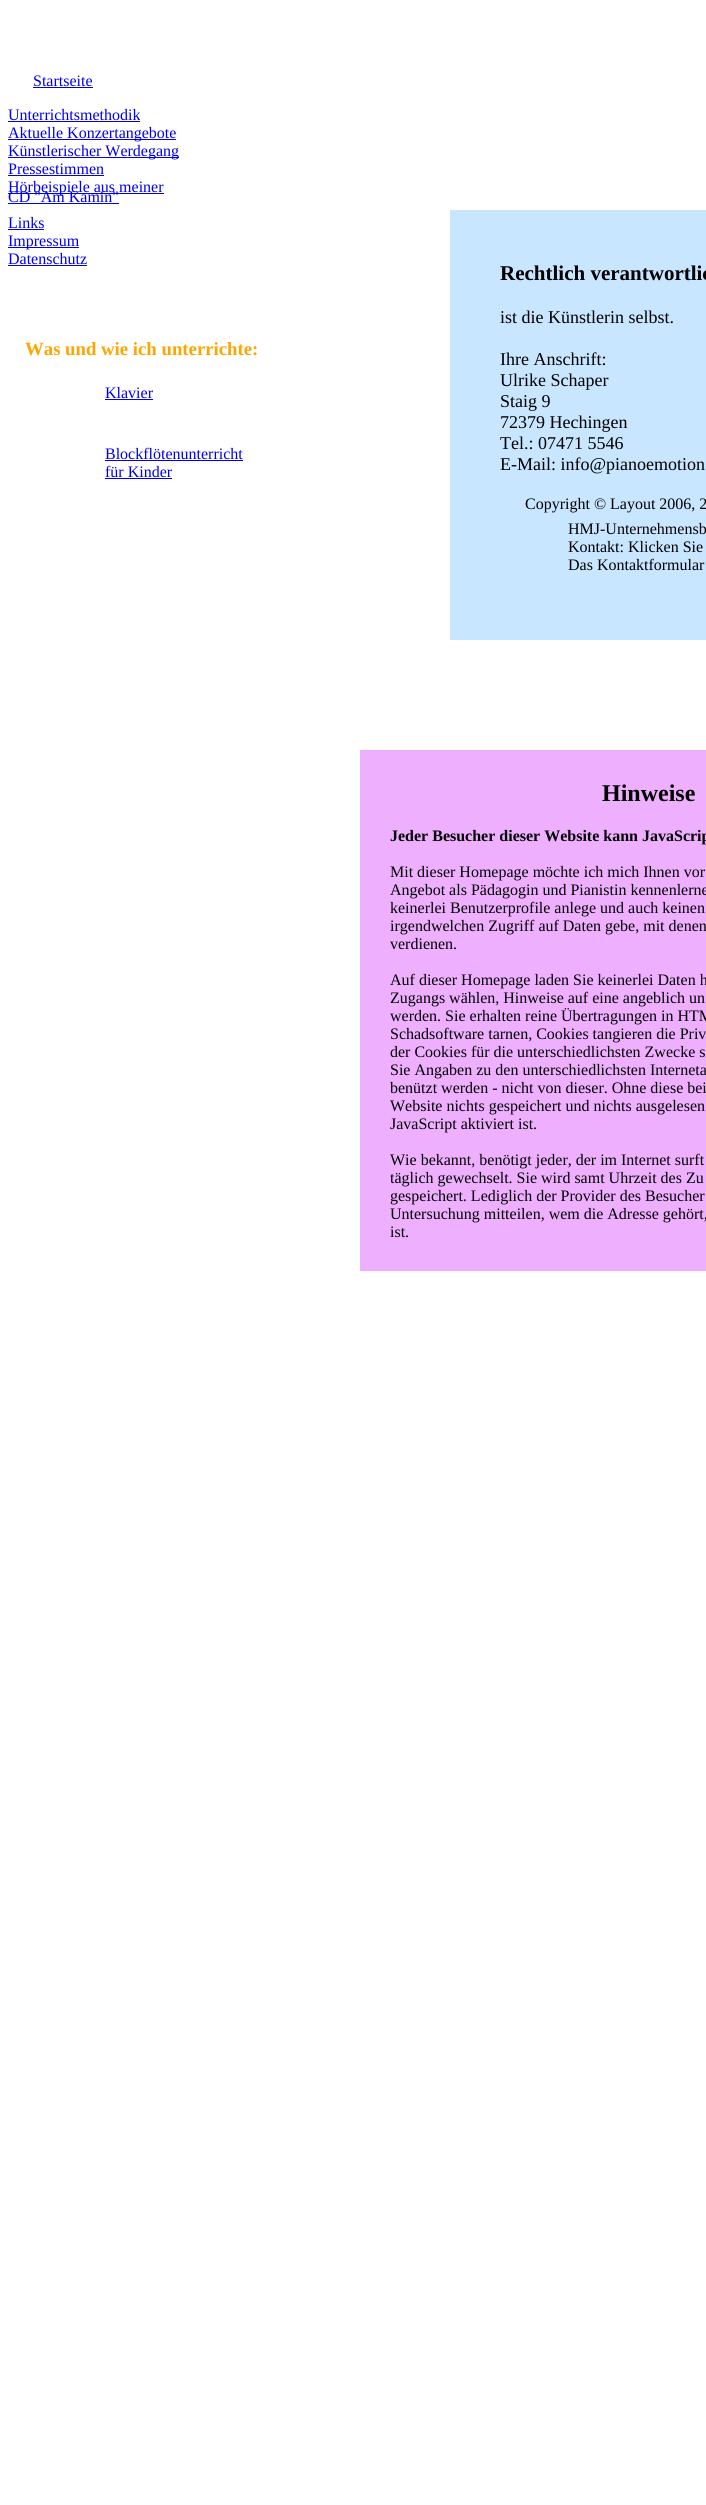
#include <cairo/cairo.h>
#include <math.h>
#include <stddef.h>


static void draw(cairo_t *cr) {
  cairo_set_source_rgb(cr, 1, 1, 1);
  cairo_paint(cr);
  cairo_set_source_rgb(cr, 0, 0, 238 / 255.0);
  cairo_rectangle(cr, 33, 87, 60, 1);
  cairo_fill(cr);
  cairo_rectangle(cr, 8, 121, 132, 1);
  cairo_fill(cr);
  cairo_rectangle(cr, 8, 139, 168, 1);
  cairo_fill(cr);
  cairo_rectangle(cr, 8, 157, 171, 1);
  cairo_fill(cr);
  cairo_rectangle(cr, 8, 175, 96, 1);
  cairo_fill(cr);
  cairo_rectangle(cr, 8, 193, 156, 1);
  cairo_fill(cr);
  cairo_rectangle(cr, 8, 203, 111, 1);
  cairo_fill(cr);
  cairo_rectangle(cr, 8, 229, 36, 1);
  cairo_fill(cr);
  cairo_rectangle(cr, 8, 247, 71, 1);
  cairo_fill(cr);
  cairo_rectangle(cr, 8, 265, 79, 1);
  cairo_fill(cr);
  cairo_rectangle(cr, 105, 399, 48, 1);
  cairo_fill(cr);
  cairo_rectangle(cr, 105, 460, 138, 1);
  cairo_fill(cr);
  cairo_rectangle(cr, 105, 478, 67, 1);
  cairo_fill(cr);
  cairo_set_source_rgb(cr, 200 / 255.0, 230 / 255.0, 1);
  cairo_rectangle(cr, 450, 210, 256, 430);
  cairo_fill(cr);
  cairo_set_source_rgb(cr, 239 / 255.0, 175 / 255.0, 1);
  cairo_rectangle(cr, 360, 750, 346, 521);
  cairo_fill(cr);
  cairo_select_font_face(cr, "Liberation Serif", CAIRO_FONT_SLANT_NORMAL, CAIRO_FONT_WEIGHT_NORMAL);
  cairo_set_font_size(cr, 16);
  cairo_set_source_rgb(cr, 0, 0, 238 / 255.0);
  cairo_move_to(cr, 33, 86);
  cairo_show_text(cr, "Startseite");
  cairo_move_to(cr, 8, 120);
  cairo_show_text(cr, "Unterrichtsmethodik");
  cairo_move_to(cr, 8, 138);
  cairo_show_text(cr, "Aktuelle Konzertangebote");
  cairo_move_to(cr, 8, 156);
  cairo_show_text(cr, "Künstlerischer Werdegang");
  cairo_move_to(cr, 8, 174);
  cairo_show_text(cr, "Pressestimmen");
  cairo_move_to(cr, 8, 192);
  cairo_show_text(cr, "Hörbeispiele aus meiner");
  cairo_move_to(cr, 8, 202);
  cairo_show_text(cr, "CD \"Am Kamin\"");
  cairo_move_to(cr, 8, 228);
  cairo_show_text(cr, "Links");
  cairo_move_to(cr, 8, 246);
  cairo_show_text(cr, "Impressum");
  cairo_move_to(cr, 8, 264);
  cairo_show_text(cr, "Datenschutz");
  cairo_select_font_face(cr, "Liberation Serif", CAIRO_FONT_SLANT_NORMAL, CAIRO_FONT_WEIGHT_BOLD);
  cairo_set_font_size(cr, 18.75);
  cairo_set_source_rgb(cr, 1, 165 / 255.0, 0);
  cairo_move_to(cr, 25, 355);
  cairo_show_text(cr, "Was und wie ich unterrichte:");
  cairo_select_font_face(cr, "Liberation Serif", CAIRO_FONT_SLANT_NORMAL, CAIRO_FONT_WEIGHT_NORMAL);
  cairo_set_font_size(cr, 16);
  cairo_set_source_rgb(cr, 0, 0, 238 / 255.0);
  cairo_move_to(cr, 105, 398);
  cairo_show_text(cr, "Klavier");
  cairo_move_to(cr, 105, 459);
  cairo_show_text(cr, "Blockflötenunterricht");
  cairo_move_to(cr, 105, 477);
  cairo_show_text(cr, "für Kinder");
  cairo_select_font_face(cr, "Liberation Serif", CAIRO_FONT_SLANT_NORMAL, CAIRO_FONT_WEIGHT_BOLD);
  cairo_set_font_size(cr, 21);
  cairo_set_source_rgb(cr, 0, 0, 0);
  cairo_move_to(cr, 500, 280);
  cairo_show_text(cr, "Rechtlich verantwortlic");
  cairo_select_font_face(cr, "Liberation Serif", CAIRO_FONT_SLANT_NORMAL, CAIRO_FONT_WEIGHT_NORMAL);
  cairo_set_font_size(cr, 18);
  cairo_move_to(cr, 500, 323);
  cairo_show_text(cr, "ist die Künstlerin selbst.");
  cairo_move_to(cr, 500, 365);
  cairo_show_text(cr, "Ihre Anschrift:");
  cairo_move_to(cr, 500, 386);
  cairo_show_text(cr, "Ulrike Schaper");
  cairo_move_to(cr, 500, 407);
  cairo_show_text(cr, "Staig 9");
  cairo_move_to(cr, 500, 428);
  cairo_show_text(cr, "72379 Hechingen");
  cairo_move_to(cr, 500, 449);
  cairo_show_text(cr, "Tel.: 07471 5546");
  cairo_move_to(cr, 500, 470);
  cairo_show_text(cr, "E-Mail: info@pianoemotion");
  cairo_set_font_size(cr, 16);
  cairo_move_to(cr, 525, 509);
  cairo_show_text(cr, "Copyright © Layout 2006, 2");
  cairo_move_to(cr, 568, 534);
  cairo_show_text(cr, "HMJ-Unternehmensb");
  cairo_move_to(cr, 568, 552);
  cairo_show_text(cr, "Kontakt: Klicken Sie");
  cairo_move_to(cr, 568, 570);
  cairo_show_text(cr, "Das Kontaktformular");
  cairo_select_font_face(cr, "Liberation Serif", CAIRO_FONT_SLANT_NORMAL, CAIRO_FONT_WEIGHT_BOLD);
  cairo_set_font_size(cr, 24);
  cairo_move_to(cr, 602, 801);
  cairo_show_text(cr, "Hinweise");
  cairo_set_font_size(cr, 16);
  cairo_move_to(cr, 390, 841);
  cairo_show_text(cr, "Jeder Besucher dieser Website kann JavaScrip");
  cairo_select_font_face(cr, "Liberation Serif", CAIRO_FONT_SLANT_NORMAL, CAIRO_FONT_WEIGHT_NORMAL);
  cairo_move_to(cr, 390, 877);
  cairo_show_text(cr, "Mit dieser Homepage möchte ich mich Ihnen vor");
  cairo_move_to(cr, 390, 895);
  cairo_show_text(cr, "Angebot als Pädagogin und Pianistin kennenlerne");
  cairo_move_to(cr, 390, 913);
  cairo_show_text(cr, "keinerlei Benutzerprofile anlege und auch keinen");
  cairo_move_to(cr, 390, 931);
  cairo_show_text(cr, "irgendwelchen Zugriff auf Daten gebe, mit denen");
  cairo_move_to(cr, 390, 949);
  cairo_show_text(cr, "verdienen.");
  cairo_move_to(cr, 390, 985);
  cairo_show_text(cr, "Auf dieser Homepage laden Sie keinerlei Daten h");
  cairo_move_to(cr, 390, 1003);
  cairo_show_text(cr, "Zugangs wählen, Hinweise auf eine angeblich un");
  cairo_move_to(cr, 390, 1021);
  cairo_show_text(cr, "werden. Sie erhalten reine Übertragungen in HTM");
  cairo_move_to(cr, 390, 1039);
  cairo_show_text(cr, "Schadsoftware tarnen, Cookies tangieren die Priv");
  cairo_move_to(cr, 390, 1057);
  cairo_show_text(cr, "der Cookies für die unterschiedlichsten Zwecke s");
  cairo_move_to(cr, 390, 1075);
  cairo_show_text(cr, "Sie Angaben zu den unterschiedlichsten Interneta");
  cairo_move_to(cr, 390, 1093);
  cairo_show_text(cr, "benützt werden - nicht von dieser. Ohne diese bei");
  cairo_move_to(cr, 390, 1111);
  cairo_show_text(cr, "Website nichts gespeichert und nichts ausgelesen");
  cairo_move_to(cr, 390, 1129);
  cairo_show_text(cr, "JavaScript aktiviert ist.");
  cairo_move_to(cr, 390, 1165);
  cairo_show_text(cr, "Wie bekannt, benötigt jeder, der im Internet surft");
  cairo_move_to(cr, 390, 1183);
  cairo_show_text(cr, "täglich gewechselt. Sie wird samt Uhrzeit des Zu");
  cairo_move_to(cr, 390, 1201);
  cairo_show_text(cr, "gespeichert. Lediglich der Provider des Besucher");
  cairo_move_to(cr, 390, 1219);
  cairo_show_text(cr, "Untersuchung mitteilen, wem die Adresse gehört,");
  cairo_move_to(cr, 390, 1237);
  cairo_show_text(cr, "ist.");
}

int main(void) {
  cairo_surface_t *surface = cairo_image_surface_create(CAIRO_FORMAT_RGB24, 706, 2505);
  cairo_t *cr = cairo_create(surface);
  cairo_font_options_t *options = cairo_font_options_create();
  cairo_font_options_set_hint_metrics(options, CAIRO_HINT_METRICS_OFF);
  cairo_font_options_set_hint_style(options, CAIRO_HINT_STYLE_NONE);
  cairo_set_font_options(cr, options);
  cairo_set_miter_limit(cr, 4);
  draw(cr);
  cairo_surface_write_to_png(surface, "out.png");
  cairo_font_options_destroy(options);
  cairo_destroy(cr);
  cairo_surface_destroy(surface);
  return 0;
}
